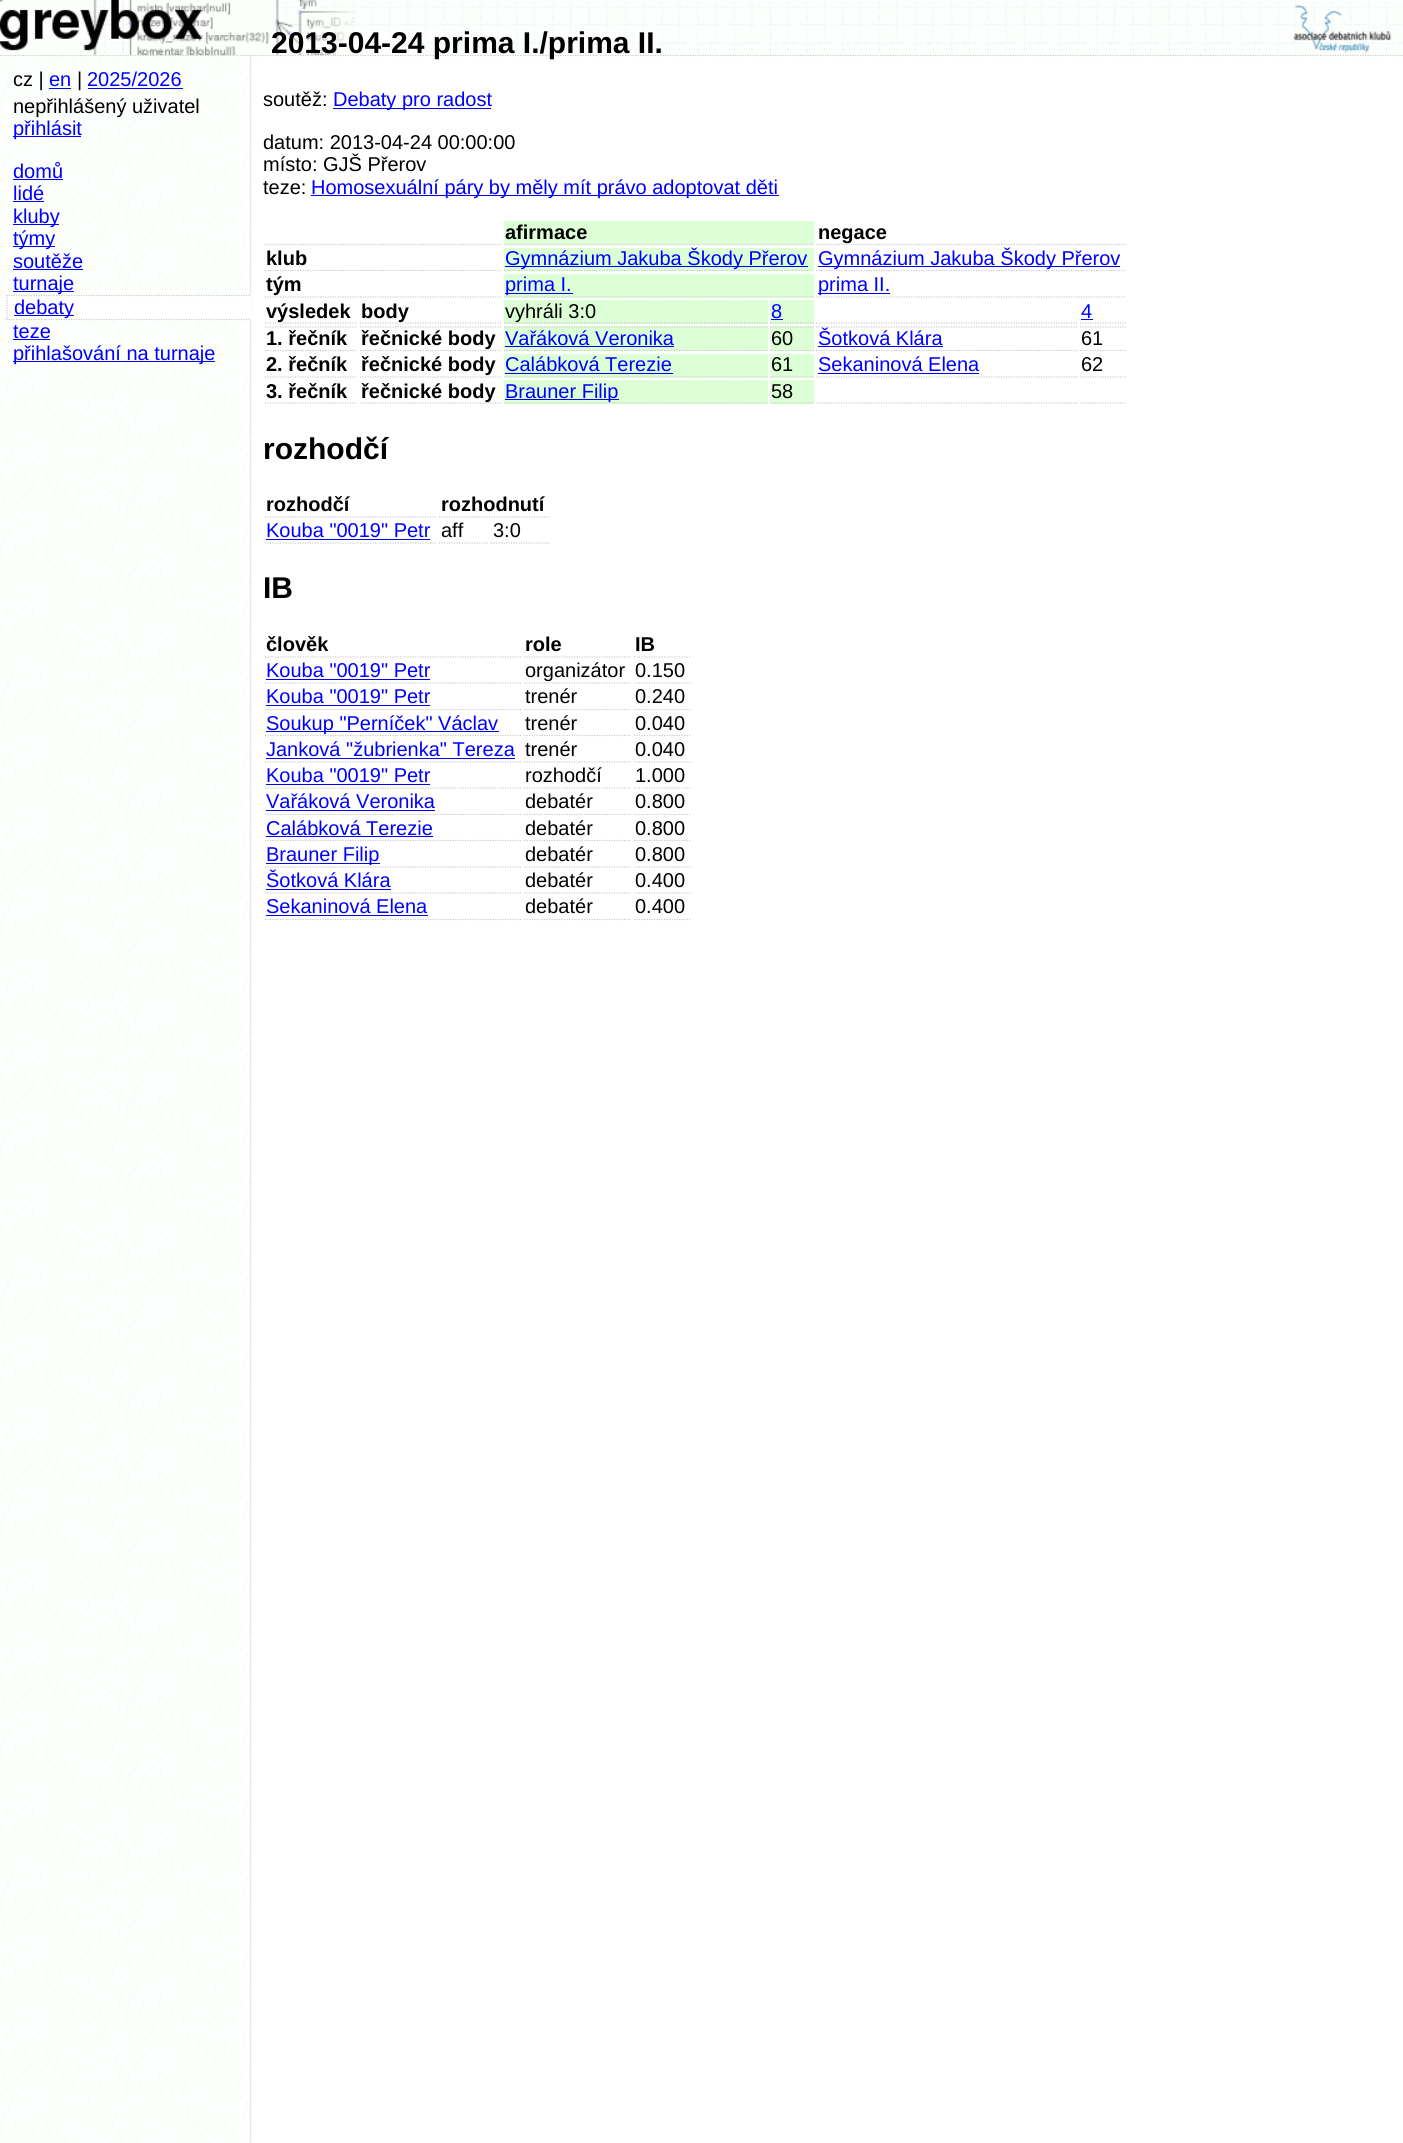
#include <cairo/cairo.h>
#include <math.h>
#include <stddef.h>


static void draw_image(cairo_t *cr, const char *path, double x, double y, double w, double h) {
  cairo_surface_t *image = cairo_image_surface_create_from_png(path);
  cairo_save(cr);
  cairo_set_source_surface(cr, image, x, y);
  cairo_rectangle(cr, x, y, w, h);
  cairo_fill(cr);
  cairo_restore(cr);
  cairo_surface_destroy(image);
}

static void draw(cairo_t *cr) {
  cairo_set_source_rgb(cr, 1, 1, 1);
  cairo_paint(cr);
  draw_image(cr, "images/1.png", 0, 56, 252, 2087);
  cairo_set_source_rgb(cr, 253 / 255.0, 1, 252 / 255.0);
  cairo_rectangle(cr, 1, 0, 1402, 56);
  cairo_fill(cr);
  draw_image(cr, "images/2.png", 305, 1, 1098, 54);
  cairo_new_path(cr);
  cairo_move_to(cr, 0, 55.5);
  cairo_line_to(cr, 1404, 55.5);
  cairo_set_source_rgb(cr, 203 / 255.0, 205 / 255.0, 202 / 255.0);
  cairo_set_line_width(cr, 1.2);
  cairo_set_dash(cr, (double[]){1.25, 1.25}, 2, 0);
  cairo_stroke(cr);
  draw_image(cr, "images/3.png", 0, 0, 357, 55);
  draw_image(cr, "images/4.png", 1293, 5, 99, 48);
  cairo_set_source_rgb(cr, 0, 0, 1);
  cairo_rectangle(cr, 49, 88, 22, 1);
  cairo_fill(cr);
  cairo_rectangle(cr, 88, 88, 95, 1);
  cairo_fill(cr);
  cairo_rectangle(cr, 13, 136, 68, 1);
  cairo_fill(cr);
  cairo_rectangle(cr, 13, 179, 50, 1);
  cairo_fill(cr);
  cairo_rectangle(cr, 13, 201, 31, 1);
  cairo_fill(cr);
  cairo_rectangle(cr, 13, 224, 46, 1);
  cairo_fill(cr);
  cairo_rectangle(cr, 13, 246, 42, 1);
  cairo_fill(cr);
  cairo_rectangle(cr, 13, 269, 70, 1);
  cairo_fill(cr);
  cairo_rectangle(cr, 13, 291, 61, 1);
  cairo_fill(cr);
  cairo_set_source_rgb(cr, 1, 1, 1);
  cairo_rectangle(cr, 6, 295, 245, 25);
  cairo_fill(cr);
  cairo_new_path(cr);
  cairo_move_to(cr, 6, 295.5);
  cairo_line_to(cr, 251, 295.5);
  cairo_set_source_rgb(cr, 203 / 255.0, 205 / 255.0, 202 / 255.0);
  cairo_stroke(cr);
  cairo_new_path(cr);
  cairo_move_to(cr, 6, 319.5);
  cairo_line_to(cr, 251, 319.5);
  cairo_stroke(cr);
  cairo_new_path(cr);
  cairo_move_to(cr, 7, 295);
  cairo_line_to(cr, 7, 320);
  cairo_stroke(cr);
  cairo_set_source_rgb(cr, 0, 0, 1);
  cairo_rectangle(cr, 14, 315, 60, 1);
  cairo_fill(cr);
  cairo_rectangle(cr, 13, 339, 37, 1);
  cairo_fill(cr);
  cairo_rectangle(cr, 13, 361, 202, 1);
  cairo_fill(cr);
  cairo_rectangle(cr, 333, 108, 158, 1);
  cairo_fill(cr);
  cairo_rectangle(cr, 311, 195, 468, 1);
  cairo_fill(cr);
  cairo_set_source_rgb(cr, 220 / 255.0, 1, 213 / 255.0);
  cairo_rectangle(cr, 504, 221, 310, 24);
  cairo_fill(cr);
  cairo_new_path(cr);
  cairo_move_to(cr, 504, 244.5);
  cairo_line_to(cr, 814, 244.5);
  cairo_set_source_rgb(cr, 203 / 255.0, 205 / 255.0, 202 / 255.0);
  cairo_stroke(cr);
  cairo_new_path(cr);
  cairo_move_to(cr, 816, 244.5);
  cairo_line_to(cr, 1126, 244.5);
  cairo_stroke(cr);
  cairo_new_path(cr);
  cairo_move_to(cr, 265, 244.5);
  cairo_line_to(cr, 501, 244.5);
  cairo_stroke(cr);
  cairo_new_path(cr);
  cairo_move_to(cr, 265, 270.5);
  cairo_line_to(cr, 501, 270.5);
  cairo_stroke(cr);
  cairo_set_source_rgb(cr, 220 / 255.0, 1, 213 / 255.0);
  cairo_rectangle(cr, 504, 248, 310, 23);
  cairo_fill(cr);
  cairo_new_path(cr);
  cairo_move_to(cr, 504, 270.5);
  cairo_line_to(cr, 814, 270.5);
  cairo_set_source_rgb(cr, 203 / 255.0, 205 / 255.0, 202 / 255.0);
  cairo_stroke(cr);
  cairo_set_source_rgb(cr, 0, 0, 1);
  cairo_rectangle(cr, 505, 266, 303, 1);
  cairo_fill(cr);
  cairo_new_path(cr);
  cairo_move_to(cr, 816, 270.5);
  cairo_line_to(cr, 1126, 270.5);
  cairo_set_source_rgb(cr, 203 / 255.0, 205 / 255.0, 202 / 255.0);
  cairo_stroke(cr);
  cairo_set_source_rgb(cr, 0, 0, 1);
  cairo_rectangle(cr, 818, 266, 302, 1);
  cairo_fill(cr);
  cairo_new_path(cr);
  cairo_move_to(cr, 265, 297);
  cairo_line_to(cr, 501, 297);
  cairo_set_source_rgb(cr, 203 / 255.0, 205 / 255.0, 202 / 255.0);
  cairo_stroke(cr);
  cairo_set_source_rgb(cr, 220 / 255.0, 1, 213 / 255.0);
  cairo_rectangle(cr, 504, 274, 310, 24);
  cairo_fill(cr);
  cairo_new_path(cr);
  cairo_move_to(cr, 504, 297);
  cairo_line_to(cr, 814, 297);
  cairo_set_source_rgb(cr, 203 / 255.0, 205 / 255.0, 202 / 255.0);
  cairo_stroke(cr);
  cairo_set_source_rgb(cr, 0, 0, 1);
  cairo_rectangle(cr, 505, 293, 68, 1);
  cairo_fill(cr);
  cairo_new_path(cr);
  cairo_move_to(cr, 816, 297);
  cairo_line_to(cr, 1126, 297);
  cairo_set_source_rgb(cr, 203 / 255.0, 205 / 255.0, 202 / 255.0);
  cairo_stroke(cr);
  cairo_set_source_rgb(cr, 0, 0, 1);
  cairo_rectangle(cr, 818, 293, 72, 1);
  cairo_fill(cr);
  cairo_new_path(cr);
  cairo_move_to(cr, 265, 323);
  cairo_line_to(cr, 357.5, 323);
  cairo_set_source_rgb(cr, 203 / 255.0, 205 / 255.0, 202 / 255.0);
  cairo_stroke(cr);
  cairo_new_path(cr);
  cairo_move_to(cr, 360, 323);
  cairo_line_to(cr, 501, 323);
  cairo_stroke(cr);
  cairo_set_source_rgb(cr, 220 / 255.0, 1, 213 / 255.0);
  cairo_rectangle(cr, 504, 300, 264, 24);
  cairo_fill(cr);
  cairo_new_path(cr);
  cairo_move_to(cr, 504, 323);
  cairo_line_to(cr, 767.5, 323);
  cairo_set_source_rgb(cr, 203 / 255.0, 205 / 255.0, 202 / 255.0);
  cairo_stroke(cr);
  cairo_set_source_rgb(cr, 220 / 255.0, 1, 213 / 255.0);
  cairo_rectangle(cr, 770, 300, 44, 24);
  cairo_fill(cr);
  cairo_new_path(cr);
  cairo_move_to(cr, 770, 323);
  cairo_line_to(cr, 814, 323);
  cairo_set_source_rgb(cr, 203 / 255.0, 205 / 255.0, 202 / 255.0);
  cairo_stroke(cr);
  cairo_set_source_rgb(cr, 0, 0, 1);
  cairo_rectangle(cr, 771, 319, 12, 1);
  cairo_fill(cr);
  cairo_new_path(cr);
  cairo_move_to(cr, 1080, 323);
  cairo_line_to(cr, 1126, 323);
  cairo_set_source_rgb(cr, 203 / 255.0, 205 / 255.0, 202 / 255.0);
  cairo_stroke(cr);
  cairo_set_source_rgb(cr, 0, 0, 1);
  cairo_rectangle(cr, 1081, 319, 12, 1);
  cairo_fill(cr);
  cairo_new_path(cr);
  cairo_move_to(cr, 816, 323);
  cairo_line_to(cr, 1077.5, 323);
  cairo_set_source_rgb(cr, 203 / 255.0, 205 / 255.0, 202 / 255.0);
  cairo_stroke(cr);
  cairo_new_path(cr);
  cairo_move_to(cr, 265, 327);
  cairo_line_to(cr, 357.5, 327);
  cairo_stroke(cr);
  cairo_new_path(cr);
  cairo_move_to(cr, 265, 350.5);
  cairo_line_to(cr, 357.5, 350.5);
  cairo_stroke(cr);
  cairo_new_path(cr);
  cairo_move_to(cr, 360, 327);
  cairo_line_to(cr, 501, 327);
  cairo_stroke(cr);
  cairo_new_path(cr);
  cairo_move_to(cr, 360, 350.5);
  cairo_line_to(cr, 501, 350.5);
  cairo_stroke(cr);
  cairo_set_source_rgb(cr, 220 / 255.0, 1, 213 / 255.0);
  cairo_rectangle(cr, 504, 326, 264, 25);
  cairo_fill(cr);
  cairo_new_path(cr);
  cairo_move_to(cr, 504, 327);
  cairo_line_to(cr, 767.5, 327);
  cairo_set_source_rgb(cr, 203 / 255.0, 205 / 255.0, 202 / 255.0);
  cairo_stroke(cr);
  cairo_new_path(cr);
  cairo_move_to(cr, 504, 350.5);
  cairo_line_to(cr, 767.5, 350.5);
  cairo_stroke(cr);
  cairo_set_source_rgb(cr, 0, 0, 1);
  cairo_rectangle(cr, 505, 346, 169, 1);
  cairo_fill(cr);
  cairo_set_source_rgb(cr, 220 / 255.0, 1, 213 / 255.0);
  cairo_rectangle(cr, 770, 326, 44, 25);
  cairo_fill(cr);
  cairo_new_path(cr);
  cairo_move_to(cr, 770, 327);
  cairo_line_to(cr, 814, 327);
  cairo_move_to(cr, 770, 350.5);
  cairo_line_to(cr, 814, 350.5);
  cairo_set_source_rgb(cr, 203 / 255.0, 205 / 255.0, 202 / 255.0);
  cairo_stroke(cr);
  cairo_new_path(cr);
  cairo_move_to(cr, 816, 327);
  cairo_line_to(cr, 1077.5, 327);
  cairo_stroke(cr);
  cairo_new_path(cr);
  cairo_move_to(cr, 816, 350.5);
  cairo_line_to(cr, 1077.5, 350.5);
  cairo_stroke(cr);
  cairo_set_source_rgb(cr, 0, 0, 1);
  cairo_rectangle(cr, 818, 346, 125, 1);
  cairo_fill(cr);
  cairo_new_path(cr);
  cairo_move_to(cr, 1080, 327);
  cairo_line_to(cr, 1126, 327);
  cairo_move_to(cr, 1080, 350.5);
  cairo_line_to(cr, 1126, 350.5);
  cairo_set_source_rgb(cr, 203 / 255.0, 205 / 255.0, 202 / 255.0);
  cairo_stroke(cr);
  cairo_new_path(cr);
  cairo_move_to(cr, 265, 377);
  cairo_line_to(cr, 357.5, 377);
  cairo_stroke(cr);
  cairo_new_path(cr);
  cairo_move_to(cr, 360, 377);
  cairo_line_to(cr, 501, 377);
  cairo_stroke(cr);
  cairo_set_source_rgb(cr, 220 / 255.0, 1, 213 / 255.0);
  cairo_rectangle(cr, 504, 354, 264, 24);
  cairo_fill(cr);
  cairo_new_path(cr);
  cairo_move_to(cr, 504, 377);
  cairo_line_to(cr, 767.5, 377);
  cairo_set_source_rgb(cr, 203 / 255.0, 205 / 255.0, 202 / 255.0);
  cairo_stroke(cr);
  cairo_set_source_rgb(cr, 0, 0, 1);
  cairo_rectangle(cr, 505, 373, 168, 1);
  cairo_fill(cr);
  cairo_set_source_rgb(cr, 220 / 255.0, 1, 213 / 255.0);
  cairo_rectangle(cr, 770, 354, 44, 24);
  cairo_fill(cr);
  cairo_new_path(cr);
  cairo_move_to(cr, 770, 377);
  cairo_line_to(cr, 814, 377);
  cairo_set_source_rgb(cr, 203 / 255.0, 205 / 255.0, 202 / 255.0);
  cairo_stroke(cr);
  cairo_new_path(cr);
  cairo_move_to(cr, 816, 377);
  cairo_line_to(cr, 1077.5, 377);
  cairo_stroke(cr);
  cairo_set_source_rgb(cr, 0, 0, 1);
  cairo_rectangle(cr, 818, 373, 161, 1);
  cairo_fill(cr);
  cairo_new_path(cr);
  cairo_move_to(cr, 1080, 377);
  cairo_line_to(cr, 1126, 377);
  cairo_set_source_rgb(cr, 203 / 255.0, 205 / 255.0, 202 / 255.0);
  cairo_stroke(cr);
  cairo_new_path(cr);
  cairo_move_to(cr, 265, 403);
  cairo_line_to(cr, 357.5, 403);
  cairo_stroke(cr);
  cairo_new_path(cr);
  cairo_move_to(cr, 360, 403);
  cairo_line_to(cr, 501, 403);
  cairo_stroke(cr);
  cairo_set_source_rgb(cr, 220 / 255.0, 1, 213 / 255.0);
  cairo_rectangle(cr, 504, 380, 264, 24);
  cairo_fill(cr);
  cairo_new_path(cr);
  cairo_move_to(cr, 504, 403);
  cairo_line_to(cr, 767.5, 403);
  cairo_set_source_rgb(cr, 203 / 255.0, 205 / 255.0, 202 / 255.0);
  cairo_stroke(cr);
  cairo_set_source_rgb(cr, 0, 0, 1);
  cairo_rectangle(cr, 505, 399, 114, 1);
  cairo_fill(cr);
  cairo_set_source_rgb(cr, 220 / 255.0, 1, 213 / 255.0);
  cairo_rectangle(cr, 770, 380, 44, 24);
  cairo_fill(cr);
  cairo_new_path(cr);
  cairo_move_to(cr, 770, 403);
  cairo_line_to(cr, 814, 403);
  cairo_set_source_rgb(cr, 203 / 255.0, 205 / 255.0, 202 / 255.0);
  cairo_stroke(cr);
  cairo_new_path(cr);
  cairo_move_to(cr, 816, 403);
  cairo_line_to(cr, 1077.5, 403);
  cairo_stroke(cr);
  cairo_new_path(cr);
  cairo_move_to(cr, 1080, 403);
  cairo_line_to(cr, 1126, 403);
  cairo_stroke(cr);
  cairo_new_path(cr);
  cairo_move_to(cr, 265, 517);
  cairo_line_to(cr, 436, 517);
  cairo_stroke(cr);
  cairo_new_path(cr);
  cairo_move_to(cr, 439, 517);
  cairo_line_to(cr, 550, 517);
  cairo_stroke(cr);
  cairo_new_path(cr);
  cairo_move_to(cr, 265, 543);
  cairo_line_to(cr, 436, 543);
  cairo_stroke(cr);
  cairo_set_source_rgb(cr, 0, 0, 1);
  cairo_rectangle(cr, 266, 539, 164, 1);
  cairo_fill(cr);
  cairo_new_path(cr);
  cairo_move_to(cr, 439, 543);
  cairo_line_to(cr, 489, 543);
  cairo_set_source_rgb(cr, 203 / 255.0, 205 / 255.0, 202 / 255.0);
  cairo_stroke(cr);
  cairo_new_path(cr);
  cairo_move_to(cr, 491, 543);
  cairo_line_to(cr, 550, 543);
  cairo_stroke(cr);
  cairo_new_path(cr);
  cairo_move_to(cr, 265, 657);
  cairo_line_to(cr, 521, 657);
  cairo_stroke(cr);
  cairo_new_path(cr);
  cairo_move_to(cr, 524, 657);
  cairo_line_to(cr, 631, 657);
  cairo_stroke(cr);
  cairo_new_path(cr);
  cairo_move_to(cr, 634, 657);
  cairo_line_to(cr, 691, 657);
  cairo_stroke(cr);
  cairo_new_path(cr);
  cairo_move_to(cr, 265, 683);
  cairo_line_to(cr, 521, 683);
  cairo_stroke(cr);
  cairo_set_source_rgb(cr, 0, 0, 1);
  cairo_rectangle(cr, 266, 679, 164, 1);
  cairo_fill(cr);
  cairo_new_path(cr);
  cairo_move_to(cr, 524, 683);
  cairo_line_to(cr, 631, 683);
  cairo_set_source_rgb(cr, 203 / 255.0, 205 / 255.0, 202 / 255.0);
  cairo_stroke(cr);
  cairo_new_path(cr);
  cairo_move_to(cr, 634, 683);
  cairo_line_to(cr, 691, 683);
  cairo_stroke(cr);
  cairo_new_path(cr);
  cairo_move_to(cr, 265, 709.5);
  cairo_line_to(cr, 521, 709.5);
  cairo_stroke(cr);
  cairo_set_source_rgb(cr, 0, 0, 1);
  cairo_rectangle(cr, 266, 705, 164, 1);
  cairo_fill(cr);
  cairo_new_path(cr);
  cairo_move_to(cr, 524, 709.5);
  cairo_line_to(cr, 631, 709.5);
  cairo_set_source_rgb(cr, 203 / 255.0, 205 / 255.0, 202 / 255.0);
  cairo_stroke(cr);
  cairo_new_path(cr);
  cairo_move_to(cr, 634, 709.5);
  cairo_line_to(cr, 691, 709.5);
  cairo_stroke(cr);
  cairo_new_path(cr);
  cairo_move_to(cr, 265, 735.5);
  cairo_line_to(cr, 521, 735.5);
  cairo_stroke(cr);
  cairo_set_source_rgb(cr, 0, 0, 1);
  cairo_rectangle(cr, 266, 731, 233, 1);
  cairo_fill(cr);
  cairo_new_path(cr);
  cairo_move_to(cr, 524, 735.5);
  cairo_line_to(cr, 631, 735.5);
  cairo_set_source_rgb(cr, 203 / 255.0, 205 / 255.0, 202 / 255.0);
  cairo_stroke(cr);
  cairo_new_path(cr);
  cairo_move_to(cr, 634, 735.5);
  cairo_line_to(cr, 691, 735.5);
  cairo_stroke(cr);
  cairo_new_path(cr);
  cairo_move_to(cr, 265, 762);
  cairo_line_to(cr, 521, 762);
  cairo_stroke(cr);
  cairo_set_source_rgb(cr, 0, 0, 1);
  cairo_rectangle(cr, 266, 758, 249, 1);
  cairo_fill(cr);
  cairo_new_path(cr);
  cairo_move_to(cr, 524, 762);
  cairo_line_to(cr, 631, 762);
  cairo_set_source_rgb(cr, 203 / 255.0, 205 / 255.0, 202 / 255.0);
  cairo_stroke(cr);
  cairo_new_path(cr);
  cairo_move_to(cr, 634, 762);
  cairo_line_to(cr, 691, 762);
  cairo_stroke(cr);
  cairo_new_path(cr);
  cairo_move_to(cr, 265, 788);
  cairo_line_to(cr, 521, 788);
  cairo_stroke(cr);
  cairo_set_source_rgb(cr, 0, 0, 1);
  cairo_rectangle(cr, 266, 784, 164, 1);
  cairo_fill(cr);
  cairo_new_path(cr);
  cairo_move_to(cr, 524, 788);
  cairo_line_to(cr, 631, 788);
  cairo_set_source_rgb(cr, 203 / 255.0, 205 / 255.0, 202 / 255.0);
  cairo_stroke(cr);
  cairo_new_path(cr);
  cairo_move_to(cr, 634, 788);
  cairo_line_to(cr, 691, 788);
  cairo_stroke(cr);
  cairo_new_path(cr);
  cairo_move_to(cr, 265, 814.5);
  cairo_line_to(cr, 521, 814.5);
  cairo_stroke(cr);
  cairo_set_source_rgb(cr, 0, 0, 1);
  cairo_rectangle(cr, 266, 810, 169, 1);
  cairo_fill(cr);
  cairo_new_path(cr);
  cairo_move_to(cr, 524, 814.5);
  cairo_line_to(cr, 631, 814.5);
  cairo_set_source_rgb(cr, 203 / 255.0, 205 / 255.0, 202 / 255.0);
  cairo_stroke(cr);
  cairo_new_path(cr);
  cairo_move_to(cr, 634, 814.5);
  cairo_line_to(cr, 691, 814.5);
  cairo_stroke(cr);
  cairo_new_path(cr);
  cairo_move_to(cr, 265, 840.5);
  cairo_line_to(cr, 521, 840.5);
  cairo_stroke(cr);
  cairo_set_source_rgb(cr, 0, 0, 1);
  cairo_rectangle(cr, 266, 836, 167, 1);
  cairo_fill(cr);
  cairo_new_path(cr);
  cairo_move_to(cr, 524, 840.5);
  cairo_line_to(cr, 631, 840.5);
  cairo_set_source_rgb(cr, 203 / 255.0, 205 / 255.0, 202 / 255.0);
  cairo_stroke(cr);
  cairo_new_path(cr);
  cairo_move_to(cr, 634, 840.5);
  cairo_line_to(cr, 691, 840.5);
  cairo_stroke(cr);
  cairo_new_path(cr);
  cairo_move_to(cr, 265, 867);
  cairo_line_to(cr, 521, 867);
  cairo_stroke(cr);
  cairo_set_source_rgb(cr, 0, 0, 1);
  cairo_rectangle(cr, 266, 863, 114, 1);
  cairo_fill(cr);
  cairo_new_path(cr);
  cairo_move_to(cr, 524, 867);
  cairo_line_to(cr, 631, 867);
  cairo_set_source_rgb(cr, 203 / 255.0, 205 / 255.0, 202 / 255.0);
  cairo_stroke(cr);
  cairo_new_path(cr);
  cairo_move_to(cr, 634, 867);
  cairo_line_to(cr, 691, 867);
  cairo_stroke(cr);
  cairo_new_path(cr);
  cairo_move_to(cr, 265, 893);
  cairo_line_to(cr, 521, 893);
  cairo_stroke(cr);
  cairo_set_source_rgb(cr, 0, 0, 1);
  cairo_rectangle(cr, 266, 889, 125, 1);
  cairo_fill(cr);
  cairo_new_path(cr);
  cairo_move_to(cr, 524, 893);
  cairo_line_to(cr, 631, 893);
  cairo_set_source_rgb(cr, 203 / 255.0, 205 / 255.0, 202 / 255.0);
  cairo_stroke(cr);
  cairo_new_path(cr);
  cairo_move_to(cr, 634, 893);
  cairo_line_to(cr, 691, 893);
  cairo_stroke(cr);
  cairo_new_path(cr);
  cairo_move_to(cr, 265, 919.5);
  cairo_line_to(cr, 521, 919.5);
  cairo_stroke(cr);
  cairo_set_source_rgb(cr, 0, 0, 1);
  cairo_rectangle(cr, 266, 915, 162, 1);
  cairo_fill(cr);
  cairo_new_path(cr);
  cairo_move_to(cr, 524, 919.5);
  cairo_line_to(cr, 631, 919.5);
  cairo_set_source_rgb(cr, 203 / 255.0, 205 / 255.0, 202 / 255.0);
  cairo_stroke(cr);
  cairo_new_path(cr);
  cairo_move_to(cr, 634, 919.5);
  cairo_line_to(cr, 691, 919.5);
  cairo_stroke(cr);
  cairo_select_font_face(cr, "Liberation Sans", CAIRO_FONT_SLANT_NORMAL, CAIRO_FONT_WEIGHT_BOLD);
  cairo_set_font_size(cr, 30);
  cairo_set_source_rgb(cr, 0, 0, 0);
  cairo_move_to(cr, 271, 53);
  cairo_show_text(cr, "2013-04-24 prima I./prima II.");
  cairo_select_font_face(cr, "Liberation Sans", CAIRO_FONT_SLANT_NORMAL, CAIRO_FONT_WEIGHT_NORMAL);
  cairo_set_font_size(cr, 20);
  cairo_move_to(cr, 13, 86);
  cairo_show_text(cr, "cz |");
  cairo_set_source_rgb(cr, 0, 0, 1);
  cairo_move_to(cr, 49, 86);
  cairo_show_text(cr, "en");
  cairo_set_source_rgb(cr, 0, 0, 0);
  cairo_move_to(cr, 77, 86);
  cairo_show_text(cr, "|");
  cairo_set_source_rgb(cr, 0, 0, 1);
  cairo_move_to(cr, 87, 86);
  cairo_show_text(cr, "2025/2026");
  cairo_set_source_rgb(cr, 0, 0, 0);
  cairo_move_to(cr, 13, 113);
  cairo_show_text(cr, "nepřihlášený uživatel");
  cairo_set_source_rgb(cr, 0, 0, 1);
  cairo_move_to(cr, 13, 135);
  cairo_show_text(cr, "přihlásit");
  cairo_move_to(cr, 13, 178);
  cairo_show_text(cr, "domů");
  cairo_move_to(cr, 13, 200);
  cairo_show_text(cr, "lidé");
  cairo_move_to(cr, 13, 223);
  cairo_show_text(cr, "kluby");
  cairo_move_to(cr, 13, 245);
  cairo_show_text(cr, "týmy");
  cairo_move_to(cr, 13, 268);
  cairo_show_text(cr, "soutěže");
  cairo_move_to(cr, 13, 290);
  cairo_show_text(cr, "turnaje");
  cairo_move_to(cr, 14, 314);
  cairo_show_text(cr, "debaty");
  cairo_move_to(cr, 13, 338);
  cairo_show_text(cr, "teze");
  cairo_move_to(cr, 13, 360);
  cairo_show_text(cr, "přihlašování na turnaje");
  cairo_set_source_rgb(cr, 0, 0, 0);
  cairo_move_to(cr, 263, 106);
  cairo_show_text(cr, "soutěž:");
  cairo_set_source_rgb(cr, 0, 0, 1);
  cairo_move_to(cr, 333, 106);
  cairo_show_text(cr, "Debaty pro radost");
  cairo_set_source_rgb(cr, 0, 0, 0);
  cairo_move_to(cr, 263, 149);
  cairo_show_text(cr, "datum: 2013-04-24 00:00:00");
  cairo_move_to(cr, 263, 171);
  cairo_show_text(cr, "místo: GJŠ Přerov");
  cairo_move_to(cr, 263, 194);
  cairo_show_text(cr, "teze:");
  cairo_set_source_rgb(cr, 0, 0, 1);
  cairo_move_to(cr, 311, 194);
  cairo_show_text(cr, "Homosexuální páry by měly mít právo adoptovat děti");
  cairo_select_font_face(cr, "Liberation Sans", CAIRO_FONT_SLANT_NORMAL, CAIRO_FONT_WEIGHT_BOLD);
  cairo_set_source_rgb(cr, 0, 0, 0);
  cairo_move_to(cr, 505, 239);
  cairo_show_text(cr, "afirmace");
  cairo_move_to(cr, 818, 239);
  cairo_show_text(cr, "negace");
  cairo_move_to(cr, 266, 265);
  cairo_show_text(cr, "klub");
  cairo_select_font_face(cr, "Liberation Sans", CAIRO_FONT_SLANT_NORMAL, CAIRO_FONT_WEIGHT_NORMAL);
  cairo_set_source_rgb(cr, 0, 0, 1);
  cairo_move_to(cr, 505, 265);
  cairo_show_text(cr, "Gymnázium Jakuba Škody Přerov");
  cairo_move_to(cr, 818, 265);
  cairo_show_text(cr, "Gymnázium Jakuba Škody Přerov");
  cairo_select_font_face(cr, "Liberation Sans", CAIRO_FONT_SLANT_NORMAL, CAIRO_FONT_WEIGHT_BOLD);
  cairo_set_source_rgb(cr, 0, 0, 0);
  cairo_move_to(cr, 266, 291);
  cairo_show_text(cr, "tým");
  cairo_select_font_face(cr, "Liberation Sans", CAIRO_FONT_SLANT_NORMAL, CAIRO_FONT_WEIGHT_NORMAL);
  cairo_set_source_rgb(cr, 0, 0, 1);
  cairo_move_to(cr, 505, 291);
  cairo_show_text(cr, "prima I.");
  cairo_move_to(cr, 818, 291);
  cairo_show_text(cr, "prima II.");
  cairo_select_font_face(cr, "Liberation Sans", CAIRO_FONT_SLANT_NORMAL, CAIRO_FONT_WEIGHT_BOLD);
  cairo_set_source_rgb(cr, 0, 0, 0);
  cairo_move_to(cr, 266, 318);
  cairo_show_text(cr, "výsledek");
  cairo_move_to(cr, 361, 318);
  cairo_show_text(cr, "body");
  cairo_select_font_face(cr, "Liberation Sans", CAIRO_FONT_SLANT_NORMAL, CAIRO_FONT_WEIGHT_NORMAL);
  cairo_move_to(cr, 505, 318);
  cairo_show_text(cr, "vyhráli 3:0");
  cairo_set_source_rgb(cr, 0, 0, 1);
  cairo_move_to(cr, 771, 318);
  cairo_show_text(cr, "8");
  cairo_move_to(cr, 1081, 318);
  cairo_show_text(cr, "4");
  cairo_select_font_face(cr, "Liberation Sans", CAIRO_FONT_SLANT_NORMAL, CAIRO_FONT_WEIGHT_BOLD);
  cairo_set_source_rgb(cr, 0, 0, 0);
  cairo_move_to(cr, 266, 345);
  cairo_show_text(cr, "1. řečník");
  cairo_move_to(cr, 361, 345);
  cairo_show_text(cr, "řečnické body");
  cairo_select_font_face(cr, "Liberation Sans", CAIRO_FONT_SLANT_NORMAL, CAIRO_FONT_WEIGHT_NORMAL);
  cairo_set_source_rgb(cr, 0, 0, 1);
  cairo_move_to(cr, 505, 345);
  cairo_show_text(cr, "Vařáková Veronika");
  cairo_set_source_rgb(cr, 0, 0, 0);
  cairo_move_to(cr, 771, 345);
  cairo_show_text(cr, "60");
  cairo_set_source_rgb(cr, 0, 0, 1);
  cairo_move_to(cr, 818, 345);
  cairo_show_text(cr, "Šotková Klára");
  cairo_set_source_rgb(cr, 0, 0, 0);
  cairo_move_to(cr, 1081, 345);
  cairo_show_text(cr, "61");
  cairo_select_font_face(cr, "Liberation Sans", CAIRO_FONT_SLANT_NORMAL, CAIRO_FONT_WEIGHT_BOLD);
  cairo_move_to(cr, 266, 371);
  cairo_show_text(cr, "2. řečník");
  cairo_move_to(cr, 361, 371);
  cairo_show_text(cr, "řečnické body");
  cairo_select_font_face(cr, "Liberation Sans", CAIRO_FONT_SLANT_NORMAL, CAIRO_FONT_WEIGHT_NORMAL);
  cairo_set_source_rgb(cr, 0, 0, 1);
  cairo_move_to(cr, 505, 371);
  cairo_show_text(cr, "Calábková Terezie");
  cairo_set_source_rgb(cr, 0, 0, 0);
  cairo_move_to(cr, 771, 371);
  cairo_show_text(cr, "61");
  cairo_set_source_rgb(cr, 0, 0, 1);
  cairo_move_to(cr, 818, 371);
  cairo_show_text(cr, "Sekaninová Elena");
  cairo_set_source_rgb(cr, 0, 0, 0);
  cairo_move_to(cr, 1081, 371);
  cairo_show_text(cr, "62");
  cairo_select_font_face(cr, "Liberation Sans", CAIRO_FONT_SLANT_NORMAL, CAIRO_FONT_WEIGHT_BOLD);
  cairo_move_to(cr, 266, 398);
  cairo_show_text(cr, "3. řečník");
  cairo_move_to(cr, 361, 398);
  cairo_show_text(cr, "řečnické body");
  cairo_select_font_face(cr, "Liberation Sans", CAIRO_FONT_SLANT_NORMAL, CAIRO_FONT_WEIGHT_NORMAL);
  cairo_set_source_rgb(cr, 0, 0, 1);
  cairo_move_to(cr, 505, 398);
  cairo_show_text(cr, "Brauner Filip");
  cairo_set_source_rgb(cr, 0, 0, 0);
  cairo_move_to(cr, 771, 398);
  cairo_show_text(cr, "58");
  cairo_select_font_face(cr, "Liberation Sans", CAIRO_FONT_SLANT_NORMAL, CAIRO_FONT_WEIGHT_BOLD);
  cairo_set_font_size(cr, 30);
  cairo_move_to(cr, 263, 459);
  cairo_show_text(cr, "rozhodčí");
  cairo_set_font_size(cr, 20);
  cairo_move_to(cr, 266, 511);
  cairo_show_text(cr, "rozhodčí");
  cairo_move_to(cr, 441, 511);
  cairo_show_text(cr, "rozhodnutí");
  cairo_select_font_face(cr, "Liberation Sans", CAIRO_FONT_SLANT_NORMAL, CAIRO_FONT_WEIGHT_NORMAL);
  cairo_set_source_rgb(cr, 0, 0, 1);
  cairo_move_to(cr, 266, 537);
  cairo_show_text(cr, "Kouba \"0019\" Petr");
  cairo_set_source_rgb(cr, 0, 0, 0);
  cairo_move_to(cr, 441, 537);
  cairo_show_text(cr, "aff");
  cairo_move_to(cr, 493, 537);
  cairo_show_text(cr, "3:0");
  cairo_select_font_face(cr, "Liberation Sans", CAIRO_FONT_SLANT_NORMAL, CAIRO_FONT_WEIGHT_BOLD);
  cairo_set_font_size(cr, 30);
  cairo_move_to(cr, 263, 598);
  cairo_show_text(cr, "IB");
  cairo_set_font_size(cr, 20);
  cairo_move_to(cr, 266, 651);
  cairo_show_text(cr, "člověk");
  cairo_move_to(cr, 525, 651);
  cairo_show_text(cr, "role");
  cairo_move_to(cr, 635, 651);
  cairo_show_text(cr, "IB");
  cairo_select_font_face(cr, "Liberation Sans", CAIRO_FONT_SLANT_NORMAL, CAIRO_FONT_WEIGHT_NORMAL);
  cairo_set_source_rgb(cr, 0, 0, 1);
  cairo_move_to(cr, 266, 677);
  cairo_show_text(cr, "Kouba \"0019\" Petr");
  cairo_set_source_rgb(cr, 0, 0, 0);
  cairo_move_to(cr, 525, 677);
  cairo_show_text(cr, "organizátor");
  cairo_move_to(cr, 635, 677);
  cairo_show_text(cr, "0.150");
  cairo_set_source_rgb(cr, 0, 0, 1);
  cairo_move_to(cr, 266, 703);
  cairo_show_text(cr, "Kouba \"0019\" Petr");
  cairo_set_source_rgb(cr, 0, 0, 0);
  cairo_move_to(cr, 525, 703);
  cairo_show_text(cr, "trenér");
  cairo_move_to(cr, 635, 703);
  cairo_show_text(cr, "0.240");
  cairo_set_source_rgb(cr, 0, 0, 1);
  cairo_move_to(cr, 266, 730);
  cairo_show_text(cr, "Soukup \"Perníček\" Václav");
  cairo_set_source_rgb(cr, 0, 0, 0);
  cairo_move_to(cr, 525, 730);
  cairo_show_text(cr, "trenér");
  cairo_move_to(cr, 635, 730);
  cairo_show_text(cr, "0.040");
  cairo_set_source_rgb(cr, 0, 0, 1);
  cairo_move_to(cr, 266, 756);
  cairo_show_text(cr, "Janková \"žubrienka\" Tereza");
  cairo_set_source_rgb(cr, 0, 0, 0);
  cairo_move_to(cr, 525, 756);
  cairo_show_text(cr, "trenér");
  cairo_move_to(cr, 635, 756);
  cairo_show_text(cr, "0.040");
  cairo_set_source_rgb(cr, 0, 0, 1);
  cairo_move_to(cr, 266, 782);
  cairo_show_text(cr, "Kouba \"0019\" Petr");
  cairo_set_source_rgb(cr, 0, 0, 0);
  cairo_move_to(cr, 525, 782);
  cairo_show_text(cr, "rozhodčí");
  cairo_move_to(cr, 635, 782);
  cairo_show_text(cr, "1.000");
  cairo_set_source_rgb(cr, 0, 0, 1);
  cairo_move_to(cr, 266, 808);
  cairo_show_text(cr, "Vařáková Veronika");
  cairo_set_source_rgb(cr, 0, 0, 0);
  cairo_move_to(cr, 525, 808);
  cairo_show_text(cr, "debatér");
  cairo_move_to(cr, 635, 808);
  cairo_show_text(cr, "0.800");
  cairo_set_source_rgb(cr, 0, 0, 1);
  cairo_move_to(cr, 266, 835);
  cairo_show_text(cr, "Calábková Terezie");
  cairo_set_source_rgb(cr, 0, 0, 0);
  cairo_move_to(cr, 525, 835);
  cairo_show_text(cr, "debatér");
  cairo_move_to(cr, 635, 835);
  cairo_show_text(cr, "0.800");
  cairo_set_source_rgb(cr, 0, 0, 1);
  cairo_move_to(cr, 266, 861);
  cairo_show_text(cr, "Brauner Filip");
  cairo_set_source_rgb(cr, 0, 0, 0);
  cairo_move_to(cr, 525, 861);
  cairo_show_text(cr, "debatér");
  cairo_move_to(cr, 635, 861);
  cairo_show_text(cr, "0.800");
  cairo_set_source_rgb(cr, 0, 0, 1);
  cairo_move_to(cr, 266, 887);
  cairo_show_text(cr, "Šotková Klára");
  cairo_set_source_rgb(cr, 0, 0, 0);
  cairo_move_to(cr, 525, 887);
  cairo_show_text(cr, "debatér");
  cairo_move_to(cr, 635, 887);
  cairo_show_text(cr, "0.400");
  cairo_set_source_rgb(cr, 0, 0, 1);
  cairo_move_to(cr, 266, 913);
  cairo_show_text(cr, "Sekaninová Elena");
  cairo_set_source_rgb(cr, 0, 0, 0);
  cairo_move_to(cr, 525, 913);
  cairo_show_text(cr, "debatér");
  cairo_move_to(cr, 635, 913);
  cairo_show_text(cr, "0.400");
}

int main(void) {
  cairo_surface_t *surface = cairo_image_surface_create(CAIRO_FORMAT_RGB24, 1403, 2143);
  cairo_t *cr = cairo_create(surface);
  cairo_font_options_t *options = cairo_font_options_create();
  cairo_font_options_set_hint_metrics(options, CAIRO_HINT_METRICS_OFF);
  cairo_font_options_set_hint_style(options, CAIRO_HINT_STYLE_NONE);
  cairo_set_font_options(cr, options);
  cairo_set_miter_limit(cr, 4);
  draw(cr);
  cairo_surface_write_to_png(surface, "out.png");
  cairo_font_options_destroy(options);
  cairo_destroy(cr);
  cairo_surface_destroy(surface);
  return 0;
}
